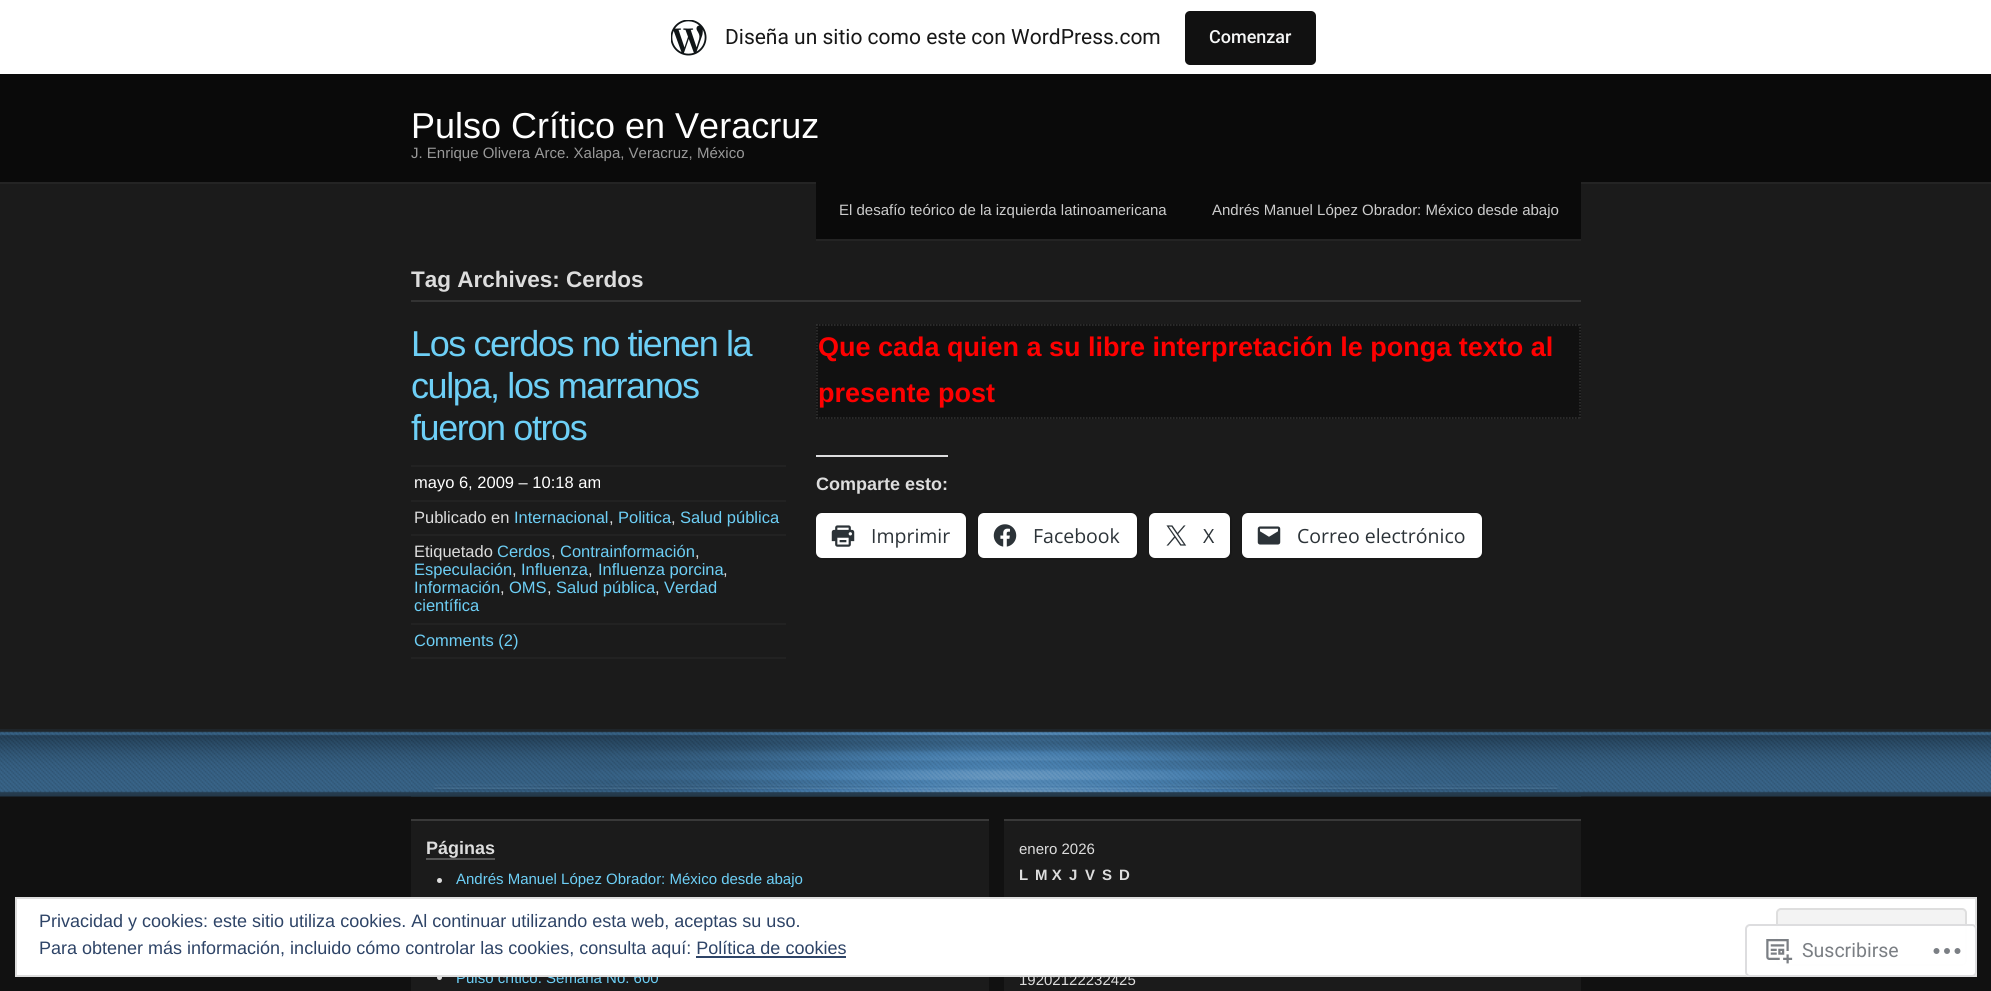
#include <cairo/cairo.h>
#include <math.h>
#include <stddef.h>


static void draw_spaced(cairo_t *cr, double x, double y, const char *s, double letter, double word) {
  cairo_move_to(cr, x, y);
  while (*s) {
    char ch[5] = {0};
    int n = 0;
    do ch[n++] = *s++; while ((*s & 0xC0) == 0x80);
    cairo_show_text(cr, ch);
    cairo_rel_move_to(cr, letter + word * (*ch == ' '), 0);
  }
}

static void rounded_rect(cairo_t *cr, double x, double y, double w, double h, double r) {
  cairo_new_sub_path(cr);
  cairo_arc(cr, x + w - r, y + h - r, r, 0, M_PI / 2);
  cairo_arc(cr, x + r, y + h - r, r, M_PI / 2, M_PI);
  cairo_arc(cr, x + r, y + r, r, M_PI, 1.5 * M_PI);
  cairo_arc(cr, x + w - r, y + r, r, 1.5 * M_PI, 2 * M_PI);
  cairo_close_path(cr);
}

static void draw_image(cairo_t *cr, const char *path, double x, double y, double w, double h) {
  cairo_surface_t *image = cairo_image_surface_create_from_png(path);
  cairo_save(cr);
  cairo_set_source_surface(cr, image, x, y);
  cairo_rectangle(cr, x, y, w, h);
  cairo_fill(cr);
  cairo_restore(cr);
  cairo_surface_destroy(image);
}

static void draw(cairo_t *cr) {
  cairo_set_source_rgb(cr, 27 / 255.0, 27 / 255.0, 27 / 255.0);
  cairo_paint(cr);
  cairo_set_source_rgb(cr, 1, 1, 1);
  cairo_rectangle(cr, 0, 0, 1991, 74);
  cairo_fill(cr);
  draw_image(cr, "images/1.png", 671, 20, 36, 36);
  cairo_set_source_rgb(cr, 17 / 255.0, 17 / 255.0, 17 / 255.0);
  rounded_rect(cr, 1185, 11, 131, 54, 5);
  cairo_fill(cr);
  cairo_set_source_rgb(cr, 10 / 255.0, 10 / 255.0, 10 / 255.0);
  cairo_rectangle(cr, 0, 74, 1991, 108);
  cairo_fill(cr);
  cairo_set_source_rgb(cr, 36 / 255.0, 36 / 255.0, 36 / 255.0);
  cairo_rectangle(cr, 0, 182, 1991, 2);
  cairo_fill(cr);
  cairo_set_source_rgb(cr, 10 / 255.0, 10 / 255.0, 10 / 255.0);
  cairo_rectangle(cr, 816, 182, 765, 57);
  cairo_fill(cr);
  cairo_set_source_rgb(cr, 36 / 255.0, 36 / 255.0, 36 / 255.0);
  cairo_rectangle(cr, 816, 239, 765, 2);
  cairo_fill(cr);
  cairo_set_source_rgb(cr, 51 / 255.0, 51 / 255.0, 51 / 255.0);
  cairo_rectangle(cr, 411, 300, 1170, 2);
  cairo_fill(cr);
  cairo_set_source_rgb(cr, 34 / 255.0, 34 / 255.0, 34 / 255.0);
  cairo_rectangle(cr, 411, 465, 375, 2);
  cairo_fill(cr);
  cairo_rectangle(cr, 411, 500, 375, 2);
  cairo_fill(cr);
  cairo_rectangle(cr, 411, 534, 375, 2);
  cairo_fill(cr);
  cairo_rectangle(cr, 411, 623, 375, 2);
  cairo_fill(cr);
  cairo_rectangle(cr, 411, 657, 375, 2);
  cairo_fill(cr);
  cairo_set_source_rgb(cr, 17 / 255.0, 17 / 255.0, 17 / 255.0);
  cairo_rectangle(cr, 816, 324, 765, 95);
  cairo_fill(cr);
  cairo_new_path(cr);
  cairo_move_to(cr, 816, 325);
  cairo_line_to(cr, 1581, 325);
  cairo_set_source_rgb(cr, 51 / 255.0, 51 / 255.0, 51 / 255.0);
  cairo_set_line_width(cr, 1.5);
  cairo_set_dash(cr, (double[]){1.5, 1.5}, 2, 0);
  cairo_stroke(cr);
  cairo_new_path(cr);
  cairo_move_to(cr, 1580, 324);
  cairo_line_to(cr, 1580, 418.5);
  cairo_stroke(cr);
  cairo_new_path(cr);
  cairo_move_to(cr, 816, 418);
  cairo_line_to(cr, 1581, 418);
  cairo_stroke(cr);
  cairo_new_path(cr);
  cairo_move_to(cr, 817, 324);
  cairo_line_to(cr, 817, 418.5);
  cairo_stroke(cr);
  cairo_set_source_rgb(cr, 220 / 255.0, 220 / 255.0, 222 / 255.0);
  cairo_rectangle(cr, 816, 455, 132, 2);
  cairo_fill(cr);
  cairo_save(cr);
  cairo_rectangle(cr, 816, 324, 765, 345);
  cairo_clip(cr);
  rounded_rect(cr, 816, 513, 151, 46, 7);
  cairo_set_source_rgb(cr, 24 / 255.0, 24 / 255.0, 24 / 255.0);
  cairo_set_line_width(cr, 2);
  cairo_set_dash(cr, NULL, 0, 0);
  cairo_stroke(cr);
  cairo_restore(cr);
  cairo_set_source_rgb(cr, 1, 1, 1);
  rounded_rect(cr, 816, 513, 150, 45, 6);
  cairo_fill(cr);
  draw_image(cr, "images/2.png", 831, 525, 24, 22);
  rounded_rect(cr, 978, 513, 160, 46, 7);
  cairo_set_source_rgb(cr, 24 / 255.0, 24 / 255.0, 24 / 255.0);
  cairo_set_line_width(cr, 2);
  cairo_set_dash(cr, NULL, 0, 0);
  cairo_stroke(cr);
  cairo_set_source_rgb(cr, 1, 1, 1);
  rounded_rect(cr, 978, 513, 159, 45, 6);
  cairo_fill(cr);
  draw_image(cr, "images/3.png", 993, 524, 24, 23);
  rounded_rect(cr, 1149, 513, 82, 46, 7);
  cairo_set_source_rgb(cr, 24 / 255.0, 24 / 255.0, 24 / 255.0);
  cairo_stroke(cr);
  cairo_set_source_rgb(cr, 1, 1, 1);
  rounded_rect(cr, 1149, 513, 81, 45, 6);
  cairo_fill(cr);
  draw_image(cr, "images/4.png", 1166, 525, 21, 21);
  rounded_rect(cr, 1242, 513, 241, 46, 7);
  cairo_set_source_rgb(cr, 24 / 255.0, 24 / 255.0, 24 / 255.0);
  cairo_stroke(cr);
  cairo_set_source_rgb(cr, 1, 1, 1);
  rounded_rect(cr, 1242, 513, 240, 45, 6);
  cairo_fill(cr);
  draw_image(cr, "images/5.png", 1257, 526, 24, 19);
  cairo_set_source_rgb(cr, 17 / 255.0, 17 / 255.0, 17 / 255.0);
  cairo_rectangle(cr, 0, 796, 1991, 195);
  cairo_fill(cr);
  draw_image(cr, "images/6.png", 0, 729, 1991, 68);
  draw_image(cr, "images/7.png", 411, 731, 1170, 66);
  cairo_set_source_rgb(cr, 27 / 255.0, 27 / 255.0, 27 / 255.0);
  cairo_rectangle(cr, 411, 821, 578, 170);
  cairo_fill(cr);
  cairo_set_source_rgb(cr, 57 / 255.0, 57 / 255.0, 57 / 255.0);
  cairo_rectangle(cr, 411, 819, 578, 2);
  cairo_fill(cr);
  cairo_set_source_rgb(cr, 85 / 255.0, 85 / 255.0, 85 / 255.0);
  cairo_rectangle(cr, 426, 858, 69, 2);
  cairo_fill(cr);
  cairo_set_source_rgb(cr, 221 / 255.0, 221 / 255.0, 221 / 255.0);
  cairo_arc(cr, 439.5, 880.5, 2.5, 0, 2 * M_PI);
  cairo_fill(cr);
  cairo_arc(cr, 439.5, 977.5, 2.5, 0, 2 * M_PI);
  cairo_fill(cr);
  cairo_set_source_rgb(cr, 27 / 255.0, 27 / 255.0, 27 / 255.0);
  cairo_rectangle(cr, 1004, 821, 577, 170);
  cairo_fill(cr);
  cairo_set_source_rgb(cr, 57 / 255.0, 57 / 255.0, 57 / 255.0);
  cairo_rectangle(cr, 1004, 819, 577, 2);
  cairo_fill(cr);
  cairo_select_font_face(cr, "Roboto", CAIRO_FONT_SLANT_NORMAL, CAIRO_FONT_WEIGHT_NORMAL);
  cairo_set_font_size(cr, 21);
  cairo_set_source_rgb(cr, 23 / 255.0, 23 / 255.0, 23 / 255.0);
  cairo_move_to(cr, 725, 44);
  cairo_show_text(cr, "Diseña un sitio como este con WordPress.com");
  cairo_select_font_face(cr, "Roboto Medium", CAIRO_FONT_SLANT_NORMAL, CAIRO_FONT_WEIGHT_NORMAL);
  cairo_set_font_size(cr, 18);
  cairo_set_source_rgb(cr, 246 / 255.0, 247 / 255.0, 247 / 255.0);
  cairo_move_to(cr, 1209, 43);
  cairo_show_text(cr, "Comenzar");
  cairo_select_font_face(cr, "Liberation Sans", CAIRO_FONT_SLANT_NORMAL, CAIRO_FONT_WEIGHT_NORMAL);
  cairo_set_font_size(cr, 36);
  cairo_set_source_rgb(cr, 1, 1, 1);
  cairo_move_to(cr, 411, 138);
  cairo_show_text(cr, "Pulso Crítico en Veracruz");
  cairo_set_font_size(cr, 15);
  cairo_set_source_rgb(cr, 153 / 255.0, 153 / 255.0, 153 / 255.0);
  cairo_move_to(cr, 411, 158);
  cairo_show_text(cr, "J. Enrique Olivera Arce. Xalapa, Veracruz, México");
  cairo_set_source_rgb(cr, 204 / 255.0, 204 / 255.0, 204 / 255.0);
  cairo_move_to(cr, 839, 215);
  cairo_show_text(cr, "El desafío teórico de la izquierda latinoamericana");
  cairo_move_to(cr, 1212, 215);
  cairo_show_text(cr, "Andrés Manuel López Obrador: México desde abajo");
  cairo_select_font_face(cr, "Liberation Sans", CAIRO_FONT_SLANT_NORMAL, CAIRO_FONT_WEIGHT_BOLD);
  cairo_set_font_size(cr, 22.5);
  cairo_set_source_rgb(cr, 221 / 255.0, 221 / 255.0, 221 / 255.0);
  cairo_move_to(cr, 411, 287);
  cairo_show_text(cr, "Tag Archives: Cerdos");
  cairo_select_font_face(cr, "Liberation Sans", CAIRO_FONT_SLANT_NORMAL, CAIRO_FONT_WEIGHT_NORMAL);
  cairo_set_font_size(cr, 36);
  cairo_set_source_rgb(cr, 109 / 255.0, 207 / 255.0, 246 / 255.0);
  draw_spaced(cr, 411, 356, "Los cerdos no tienen la", -1.4, 0);
  draw_spaced(cr, 411, 398, "culpa, los marranos", -1.4, 0);
  draw_spaced(cr, 411, 440, "fueron otros", -1.4, 0);
  cairo_set_font_size(cr, 16.5);
  cairo_set_source_rgb(cr, 1, 1, 1);
  cairo_move_to(cr, 414, 488);
  cairo_show_text(cr, "mayo 6, 2009 – 10:18 am");
  cairo_set_source_rgb(cr, 221 / 255.0, 221 / 255.0, 221 / 255.0);
  cairo_move_to(cr, 414, 523);
  cairo_show_text(cr, "Publicado en");
  cairo_set_source_rgb(cr, 109 / 255.0, 207 / 255.0, 246 / 255.0);
  cairo_move_to(cr, 514, 523);
  cairo_show_text(cr, "Internacional");
  cairo_set_source_rgb(cr, 221 / 255.0, 221 / 255.0, 221 / 255.0);
  cairo_move_to(cr, 609, 523);
  cairo_show_text(cr, ",");
  cairo_set_source_rgb(cr, 109 / 255.0, 207 / 255.0, 246 / 255.0);
  cairo_move_to(cr, 618, 523);
  cairo_show_text(cr, "Politica");
  cairo_set_source_rgb(cr, 221 / 255.0, 221 / 255.0, 221 / 255.0);
  cairo_move_to(cr, 671, 523);
  cairo_show_text(cr, ",");
  cairo_set_source_rgb(cr, 109 / 255.0, 207 / 255.0, 246 / 255.0);
  cairo_move_to(cr, 680, 523);
  cairo_show_text(cr, "Salud pública");
  cairo_set_source_rgb(cr, 221 / 255.0, 221 / 255.0, 221 / 255.0);
  cairo_move_to(cr, 414, 557);
  cairo_show_text(cr, "Etiquetado");
  cairo_set_source_rgb(cr, 109 / 255.0, 207 / 255.0, 246 / 255.0);
  cairo_move_to(cr, 497, 557);
  cairo_show_text(cr, "Cerdos");
  cairo_set_source_rgb(cr, 221 / 255.0, 221 / 255.0, 221 / 255.0);
  cairo_move_to(cr, 551, 557);
  cairo_show_text(cr, ",");
  cairo_set_source_rgb(cr, 109 / 255.0, 207 / 255.0, 246 / 255.0);
  cairo_move_to(cr, 560, 557);
  cairo_show_text(cr, "Contrainformación");
  cairo_set_source_rgb(cr, 221 / 255.0, 221 / 255.0, 221 / 255.0);
  cairo_move_to(cr, 695, 557);
  cairo_show_text(cr, ",");
  cairo_set_source_rgb(cr, 109 / 255.0, 207 / 255.0, 246 / 255.0);
  cairo_move_to(cr, 414, 575);
  cairo_show_text(cr, "Especulación");
  cairo_set_source_rgb(cr, 221 / 255.0, 221 / 255.0, 221 / 255.0);
  cairo_move_to(cr, 512, 575);
  cairo_show_text(cr, ",");
  cairo_set_source_rgb(cr, 109 / 255.0, 207 / 255.0, 246 / 255.0);
  cairo_move_to(cr, 521, 575);
  cairo_show_text(cr, "Influenza");
  cairo_set_source_rgb(cr, 221 / 255.0, 221 / 255.0, 221 / 255.0);
  cairo_move_to(cr, 588, 575);
  cairo_show_text(cr, ",");
  cairo_set_source_rgb(cr, 109 / 255.0, 207 / 255.0, 246 / 255.0);
  cairo_move_to(cr, 598, 575);
  cairo_show_text(cr, "Influenza porcina");
  cairo_set_source_rgb(cr, 221 / 255.0, 221 / 255.0, 221 / 255.0);
  cairo_move_to(cr, 723, 575);
  cairo_show_text(cr, ",");
  cairo_set_source_rgb(cr, 109 / 255.0, 207 / 255.0, 246 / 255.0);
  cairo_move_to(cr, 414, 593);
  cairo_show_text(cr, "Información");
  cairo_set_source_rgb(cr, 221 / 255.0, 221 / 255.0, 221 / 255.0);
  cairo_move_to(cr, 500, 593);
  cairo_show_text(cr, ",");
  cairo_set_source_rgb(cr, 109 / 255.0, 207 / 255.0, 246 / 255.0);
  cairo_move_to(cr, 509, 593);
  cairo_show_text(cr, "OMS");
  cairo_set_source_rgb(cr, 221 / 255.0, 221 / 255.0, 221 / 255.0);
  cairo_move_to(cr, 547, 593);
  cairo_show_text(cr, ",");
  cairo_set_source_rgb(cr, 109 / 255.0, 207 / 255.0, 246 / 255.0);
  cairo_move_to(cr, 556, 593);
  cairo_show_text(cr, "Salud pública");
  cairo_set_source_rgb(cr, 221 / 255.0, 221 / 255.0, 221 / 255.0);
  cairo_move_to(cr, 655, 593);
  cairo_show_text(cr, ",");
  cairo_set_source_rgb(cr, 109 / 255.0, 207 / 255.0, 246 / 255.0);
  cairo_move_to(cr, 664, 593);
  cairo_show_text(cr, "Verdad");
  cairo_move_to(cr, 414, 611);
  cairo_show_text(cr, "científica");
  cairo_move_to(cr, 414, 646);
  cairo_show_text(cr, "Comments (2)");
  cairo_select_font_face(cr, "Liberation Sans", CAIRO_FONT_SLANT_NORMAL, CAIRO_FONT_WEIGHT_BOLD);
  cairo_set_font_size(cr, 27);
  cairo_set_source_rgb(cr, 1, 0, 0);
  cairo_move_to(cr, 818, 356);
  cairo_show_text(cr, "Que cada quien a su libre interpretación le ponga texto al");
  cairo_move_to(cr, 818, 402);
  cairo_show_text(cr, "presente post");
  cairo_set_font_size(cr, 18);
  cairo_set_source_rgb(cr, 221 / 255.0, 221 / 255.0, 221 / 255.0);
  cairo_move_to(cr, 816, 490);
  cairo_show_text(cr, "Comparte esto:");
  cairo_select_font_face(cr, "Open Sans", CAIRO_FONT_SLANT_NORMAL, CAIRO_FONT_WEIGHT_NORMAL);
  cairo_set_font_size(cr, 19.5);
  cairo_set_source_rgb(cr, 44 / 255.0, 51 / 255.0, 56 / 255.0);
  cairo_move_to(cr, 871, 543);
  cairo_show_text(cr, "Imprimir");
  cairo_move_to(cr, 1033, 543);
  cairo_show_text(cr, "Facebook");
  cairo_move_to(cr, 1203, 543);
  cairo_show_text(cr, "X");
  cairo_move_to(cr, 1297, 543);
  cairo_show_text(cr, "Correo electrónico");
  cairo_select_font_face(cr, "Liberation Sans", CAIRO_FONT_SLANT_NORMAL, CAIRO_FONT_WEIGHT_BOLD);
  cairo_set_font_size(cr, 18);
  cairo_set_source_rgb(cr, 221 / 255.0, 221 / 255.0, 221 / 255.0);
  cairo_move_to(cr, 426, 854);
  cairo_show_text(cr, "Páginas");
  cairo_select_font_face(cr, "Liberation Sans", CAIRO_FONT_SLANT_NORMAL, CAIRO_FONT_WEIGHT_NORMAL);
  cairo_set_font_size(cr, 15);
  cairo_set_source_rgb(cr, 109 / 255.0, 207 / 255.0, 246 / 255.0);
  cairo_move_to(cr, 456, 884);
  cairo_show_text(cr, "Andrés Manuel López Obrador: México desde abajo");
  cairo_move_to(cr, 456, 983);
  cairo_show_text(cr, "Pulso crítico. Semana No. 600");
  cairo_set_source_rgb(cr, 221 / 255.0, 221 / 255.0, 221 / 255.0);
  cairo_move_to(cr, 1019, 854);
  cairo_show_text(cr, "enero 2026");
  cairo_select_font_face(cr, "Liberation Sans", CAIRO_FONT_SLANT_NORMAL, CAIRO_FONT_WEIGHT_BOLD);
  cairo_move_to(cr, 1019, 880);
  cairo_show_text(cr, "L");
  cairo_move_to(cr, 1035, 880);
  cairo_show_text(cr, "M X");
  cairo_move_to(cr, 1069, 880);
  cairo_show_text(cr, "J");
  cairo_move_to(cr, 1085, 880);
  cairo_show_text(cr, "V");
  cairo_move_to(cr, 1102, 880);
  cairo_show_text(cr, "S");
  cairo_move_to(cr, 1119, 880);
  cairo_show_text(cr, "D");
  cairo_select_font_face(cr, "Liberation Sans", CAIRO_FONT_SLANT_NORMAL, CAIRO_FONT_WEIGHT_NORMAL);
  cairo_move_to(cr, 1019, 985);
  cairo_show_text(cr, "19202122232425");
  cairo_set_source_rgb(cr, 1, 1, 1);
  cairo_rectangle(cr, 16, 898, 1960, 78);
  cairo_fill_preserve(cr);
  cairo_set_source_rgb(cr, 222 / 255.0, 222 / 255.0, 222 / 255.0);
  cairo_stroke(cr);
  cairo_set_font_size(cr, 18);
  cairo_set_source_rgb(cr, 46 / 255.0, 68 / 255.0, 103 / 255.0);
  cairo_move_to(cr, 39, 927);
  cairo_show_text(cr, "Privacidad y cookies: este sitio utiliza cookies. Al continuar utilizando esta web, aceptas su uso.");
  cairo_set_source_rgb(cr, 243 / 255.0, 243 / 255.0, 243 / 255.0);
  rounded_rect(cr, 1777, 909, 189, 56, 4);
  cairo_fill_preserve(cr);
  cairo_set_source_rgb(cr, 222 / 255.0, 222 / 255.0, 222 / 255.0);
  cairo_stroke(cr);
  cairo_set_source_rgb(cr, 46 / 255.0, 68 / 255.0, 103 / 255.0);
  cairo_move_to(cr, 39, 954);
  cairo_show_text(cr, "Para obtener más información, incluido cómo controlar las cookies, consulta aquí: Política de cookies");
  cairo_rectangle(cr, 696, 956, 150, 2);
  cairo_fill(cr);
  cairo_set_source_rgba(cr, 1, 1, 1, 0.98);
  rounded_rect(cr, 1745, 924, 232, 53, 5);
  cairo_fill(cr);
  rounded_rect(cr, 1746, 925, 230, 51, 4);
  cairo_set_source_rgba(cr, 220 / 255.0, 220 / 255.0, 222 / 255.0, 0.98);
  cairo_stroke(cr);
  draw_image(cr, "images/8.png", 1766, 939, 27, 25);
  cairo_select_font_face(cr, "Roboto", CAIRO_FONT_SLANT_NORMAL, CAIRO_FONT_WEIGHT_NORMAL);
  cairo_set_font_size(cr, 19.5);
  cairo_set_source_rgb(cr, 123 / 255.0, 127 / 255.0, 132 / 255.0);
  cairo_move_to(cr, 1802, 957);
  cairo_show_text(cr, "Suscribirse");
  draw_image(cr, "images/9.png", 1933, 948, 28, 6);
}

int main(void) {
  cairo_surface_t *surface = cairo_image_surface_create(CAIRO_FORMAT_RGB24, 1991, 991);
  cairo_t *cr = cairo_create(surface);
  cairo_font_options_t *options = cairo_font_options_create();
  cairo_font_options_set_hint_metrics(options, CAIRO_HINT_METRICS_OFF);
  cairo_font_options_set_hint_style(options, CAIRO_HINT_STYLE_NONE);
  cairo_set_font_options(cr, options);
  cairo_set_miter_limit(cr, 4);
  draw(cr);
  cairo_surface_write_to_png(surface, "out.png");
  cairo_font_options_destroy(options);
  cairo_destroy(cr);
  cairo_surface_destroy(surface);
  return 0;
}
